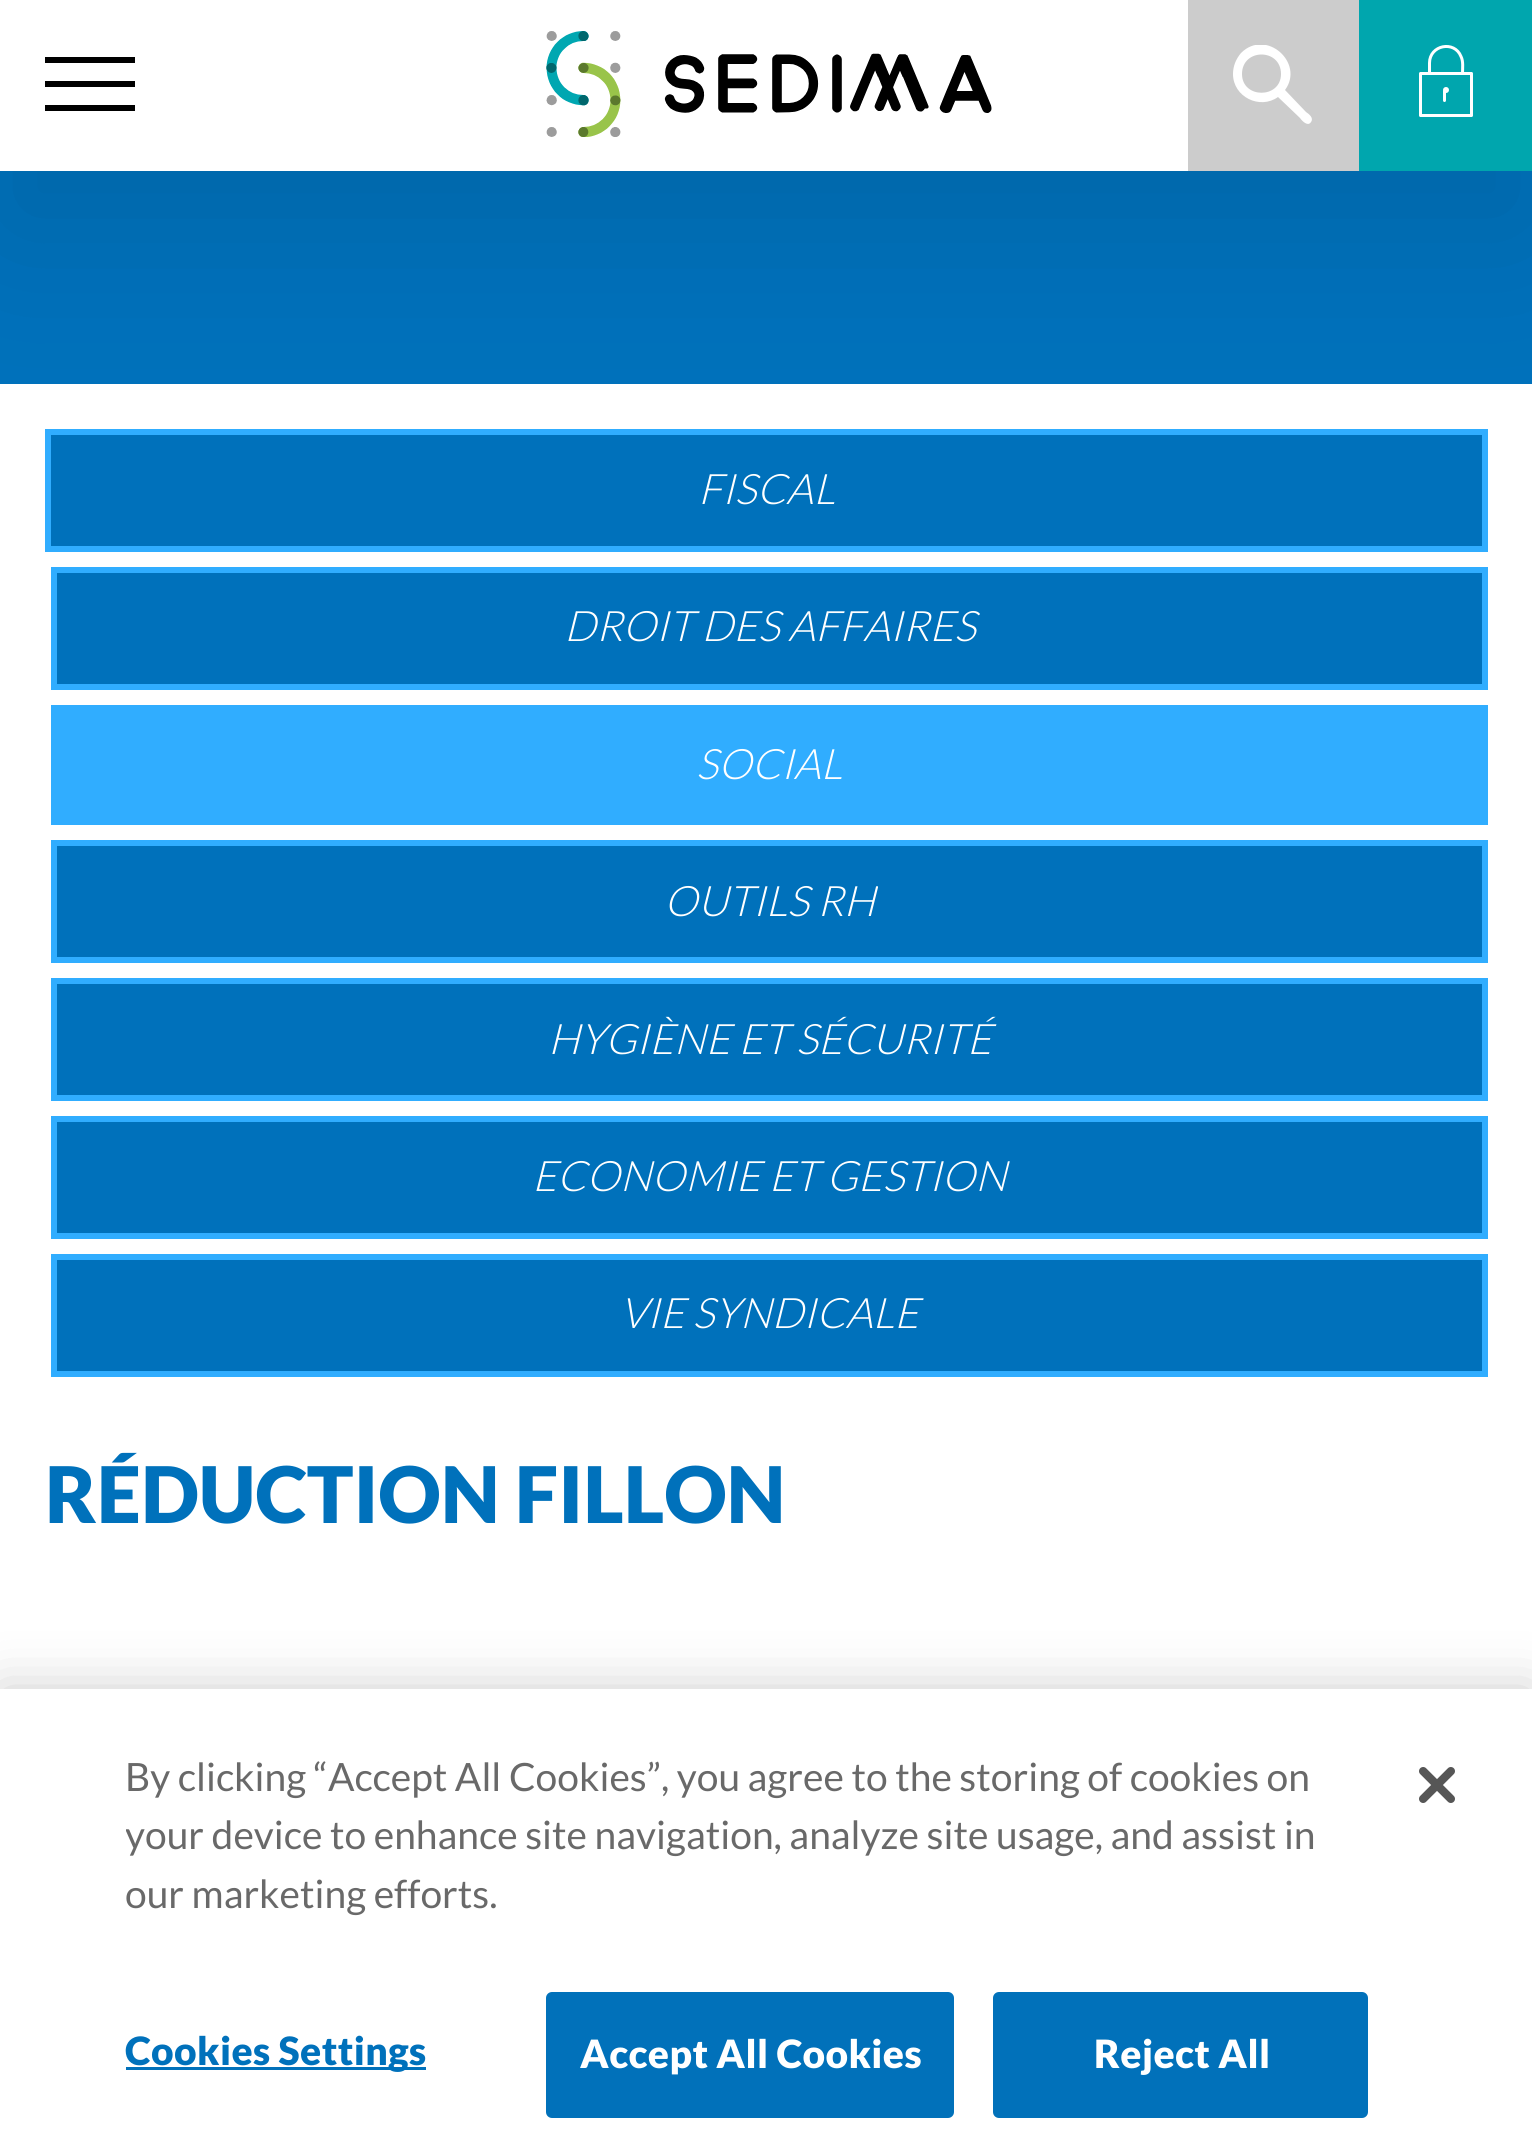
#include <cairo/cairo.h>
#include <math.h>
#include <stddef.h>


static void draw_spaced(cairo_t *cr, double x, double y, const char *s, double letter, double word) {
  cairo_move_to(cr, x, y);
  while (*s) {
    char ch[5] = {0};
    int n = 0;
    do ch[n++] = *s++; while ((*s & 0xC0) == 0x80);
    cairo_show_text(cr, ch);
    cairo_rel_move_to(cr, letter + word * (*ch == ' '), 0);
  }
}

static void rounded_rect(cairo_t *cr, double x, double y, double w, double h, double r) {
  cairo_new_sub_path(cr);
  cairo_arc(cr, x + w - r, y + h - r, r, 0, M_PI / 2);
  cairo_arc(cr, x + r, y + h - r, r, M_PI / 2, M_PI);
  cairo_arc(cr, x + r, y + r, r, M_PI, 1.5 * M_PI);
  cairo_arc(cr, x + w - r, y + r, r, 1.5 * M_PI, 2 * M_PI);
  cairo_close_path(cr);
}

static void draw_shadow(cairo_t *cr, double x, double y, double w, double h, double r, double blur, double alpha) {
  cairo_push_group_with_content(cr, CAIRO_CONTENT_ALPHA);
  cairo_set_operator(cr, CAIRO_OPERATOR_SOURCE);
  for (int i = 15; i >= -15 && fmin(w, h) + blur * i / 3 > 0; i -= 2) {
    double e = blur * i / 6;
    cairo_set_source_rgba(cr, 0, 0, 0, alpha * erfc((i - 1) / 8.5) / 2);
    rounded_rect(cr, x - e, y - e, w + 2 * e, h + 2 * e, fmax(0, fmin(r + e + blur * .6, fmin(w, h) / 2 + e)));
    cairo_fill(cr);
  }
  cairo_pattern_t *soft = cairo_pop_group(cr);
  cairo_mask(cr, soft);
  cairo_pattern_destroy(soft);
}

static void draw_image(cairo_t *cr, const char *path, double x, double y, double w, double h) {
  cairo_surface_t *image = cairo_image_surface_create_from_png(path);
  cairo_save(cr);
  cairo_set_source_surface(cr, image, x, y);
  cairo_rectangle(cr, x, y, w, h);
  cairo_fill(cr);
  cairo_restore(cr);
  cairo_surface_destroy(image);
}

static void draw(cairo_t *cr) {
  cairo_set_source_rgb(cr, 1, 1, 1);
  cairo_paint(cr);
  cairo_set_source_rgb(cr, 0, 113 / 255.0, 187 / 255.0);
  cairo_rectangle(cr, 0, 171, 1532, 213);
  cairo_fill(cr);
  cairo_rectangle(cr, 48, 432, 1437, 117);
  cairo_fill_preserve(cr);
  cairo_set_source_rgb(cr, 48 / 255.0, 173 / 255.0, 1);
  cairo_set_line_width(cr, 6);
  cairo_stroke(cr);
  cairo_set_source_rgb(cr, 0, 0, 0);
  draw_shadow(cr, 0, 60, 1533, 171, 0, 75, 0.1);
  cairo_set_source_rgb(cr, 1, 1, 1);
  cairo_rectangle(cr, 0, 0, 1188, 171);
  cairo_fill(cr);
  cairo_set_source_rgb(cr, 0, 0, 0);
  cairo_rectangle(cr, 45, 57, 90, 6);
  cairo_fill(cr);
  cairo_rectangle(cr, 45, 81, 90, 6);
  cairo_fill(cr);
  cairo_rectangle(cr, 45, 105, 90, 6);
  cairo_fill(cr);
  draw_image(cr, "images/1.png", 546, 31, 446, 106);
  cairo_set_source_rgb(cr, 204 / 255.0, 204 / 255.0, 204 / 255.0);
  cairo_rectangle(cr, 1188, 0, 171, 171);
  cairo_fill(cr);
  cairo_save(cr);
  cairo_rectangle(cr, 1233, 45, 81, 81);
  cairo_clip(cr);
  cairo_set_source_rgb(cr, 1, 1, 1);
  cairo_new_path(cr);
  cairo_move_to(cr, 1233, 74);
  cairo_curve_to(cr, 1233, 66, 1236, 59, 1241, 53);
  cairo_curve_to(cr, 1266, 28, 1305, 63, 1285, 90);
  cairo_line_to(cr, 1306, 112);
  cairo_curve_to(cr, 1309, 114, 1314, 118, 1311, 122);
  cairo_curve_to(cr, 1308, 127, 1302, 121, 1300, 118);
  cairo_line_to(cr, 1278, 97);
  cairo_curve_to(cr, 1260, 110, 1233, 97, 1233, 74);
  cairo_close_path(cr);
  cairo_move_to(cr, 1242, 74);
  cairo_curve_to(cr, 1242, 99, 1281, 99, 1281, 74);
  cairo_curve_to(cr, 1281, 48, 1242, 48, 1242, 74);
  cairo_close_path(cr);
  cairo_fill(cr);
  cairo_restore(cr);
  cairo_set_source_rgb(cr, 0, 166 / 255.0, 174 / 255.0);
  cairo_rectangle(cr, 1359, 0, 173, 171);
  cairo_fill(cr);
  cairo_new_path(cr);
  cairo_move_to(cr, 1447.5, 90);
  cairo_curve_to(cr, 1447.5, 92, 1444.5, 92, 1444.5, 90);
  cairo_curve_to(cr, 1444.5, 88, 1447.5, 88, 1447.5, 90);
  cairo_close_path(cr);
  cairo_set_source_rgb(cr, 1, 1, 1);
  cairo_set_line_width(cr, 3);
  cairo_set_line_join(cr, CAIRO_LINE_JOIN_ROUND);
  cairo_stroke(cr);
  cairo_new_path(cr);
  cairo_move_to(cr, 1444.5, 91.5);
  cairo_line_to(cr, 1444.5, 100.5);
  cairo_set_line_cap(cr, CAIRO_LINE_CAP_ROUND);
  cairo_stroke(cr);
  cairo_new_path(cr);
  cairo_move_to(cr, 1420.5, 115.5);
  cairo_line_to(cr, 1471.5, 115.5);
  cairo_line_to(cr, 1471.5, 73.5);
  cairo_line_to(cr, 1420.5, 73.5);
  cairo_close_path(cr);
  cairo_set_line_cap(cr, CAIRO_LINE_CAP_BUTT);
  cairo_stroke(cr);
  cairo_new_path(cr);
  cairo_move_to(cr, 1429.5, 63);
  cairo_curve_to(cr, 1429.5, 45, 1454.5, 40, 1461, 56.5);
  cairo_curve_to(cr, 1463.5, 61.5, 1462.5, 68, 1462.5, 73.5);
  cairo_line_to(cr, 1429.5, 73.5);
  cairo_close_path(cr);
  cairo_stroke(cr);
  cairo_set_source_rgb(cr, 0, 113 / 255.0, 187 / 255.0);
  cairo_rectangle(cr, 54, 570, 1431, 117);
  cairo_fill_preserve(cr);
  cairo_set_source_rgb(cr, 48 / 255.0, 173 / 255.0, 1);
  cairo_set_line_width(cr, 6);
  cairo_set_line_join(cr, CAIRO_LINE_JOIN_MITER);
  cairo_stroke(cr);
  cairo_rectangle(cr, 51, 705, 1437, 120);
  cairo_fill(cr);
  cairo_set_source_rgb(cr, 0, 113 / 255.0, 187 / 255.0);
  cairo_rectangle(cr, 54, 843, 1431, 117);
  cairo_fill_preserve(cr);
  cairo_set_source_rgb(cr, 48 / 255.0, 173 / 255.0, 1);
  cairo_stroke(cr);
  cairo_set_source_rgb(cr, 0, 113 / 255.0, 187 / 255.0);
  cairo_rectangle(cr, 54, 981, 1431, 117);
  cairo_fill_preserve(cr);
  cairo_set_source_rgb(cr, 48 / 255.0, 173 / 255.0, 1);
  cairo_stroke(cr);
  cairo_set_source_rgb(cr, 0, 113 / 255.0, 187 / 255.0);
  cairo_rectangle(cr, 54, 1119, 1431, 117);
  cairo_fill_preserve(cr);
  cairo_set_source_rgb(cr, 48 / 255.0, 173 / 255.0, 1);
  cairo_stroke(cr);
  cairo_set_source_rgb(cr, 0, 113 / 255.0, 187 / 255.0);
  cairo_rectangle(cr, 54, 1257, 1431, 117);
  cairo_fill_preserve(cr);
  cairo_set_source_rgb(cr, 48 / 255.0, 173 / 255.0, 1);
  cairo_stroke(cr);
  cairo_set_source_rgb(cr, 0, 0, 0);
  draw_shadow(cr, 0, 1689, 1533, 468, 0, 27, 0.2);
  cairo_set_source_rgb(cr, 1, 1, 1);
  cairo_rectangle(cr, 0, 1689, 1532, 466);
  cairo_fill(cr);
  cairo_set_source_rgb(cr, 1 / 255.0, 113 / 255.0, 186 / 255.0);
  cairo_rectangle(cr, 126, 2067, 300, 3);
  cairo_fill(cr);
  rounded_rect(cr, 547.5, 1993.5, 405, 123, 4.5);
  cairo_fill_preserve(cr);
  cairo_set_line_width(cr, 3);
  cairo_stroke(cr);
  rounded_rect(cr, 994.5, 1993.5, 372, 123, 4.5);
  cairo_fill_preserve(cr);
  cairo_stroke(cr);
  draw_image(cr, "images/2.png", 1419, 1767, 36, 36);
  cairo_select_font_face(cr, "Lato Light", CAIRO_FONT_SLANT_ITALIC, CAIRO_FONT_WEIGHT_NORMAL);
  cairo_set_font_size(cr, 42);
  cairo_set_source_rgb(cr, 1, 1, 1);
  cairo_move_to(cr, 698, 504);
  cairo_show_text(cr, "FISCAL");
  cairo_move_to(cr, 564, 641);
  cairo_show_text(cr, "DROIT DES AFFAIRES");
  cairo_move_to(cr, 696, 779);
  cairo_show_text(cr, "SOCIAL");
  cairo_move_to(cr, 664, 916);
  cairo_show_text(cr, "OUTILS RH");
  cairo_move_to(cr, 548, 1054);
  cairo_show_text(cr, "HYGIÈNE ET SÉCURITÉ");
  cairo_move_to(cr, 532, 1191);
  cairo_show_text(cr, "ECONOMIE ET GESTION");
  cairo_move_to(cr, 620, 1328);
  cairo_show_text(cr, "VIE SYNDICALE");
  cairo_select_font_face(cr, "Lato Black", CAIRO_FONT_SLANT_NORMAL, CAIRO_FONT_WEIGHT_NORMAL);
  cairo_set_font_size(cr, 78);
  cairo_set_source_rgb(cr, 0, 113 / 255.0, 187 / 255.0);
  cairo_move_to(cr, 45, 1523);
  cairo_show_text(cr, "RÉDUCTION FILLON");
  cairo_select_font_face(cr, "Lato", CAIRO_FONT_SLANT_NORMAL, CAIRO_FONT_WEIGHT_NORMAL);
  cairo_set_font_size(cr, 39);
  cairo_set_source_rgb(cr, 105 / 255.0, 105 / 255.0, 105 / 255.0);
  cairo_move_to(cr, 125, 1791);
  cairo_show_text(cr, "By clicking “Accept All Cookies”, you agree to the storing of cookies on");
  cairo_save(cr);
  cairo_rectangle(cr, 126, 1749, 1212, 213);
  cairo_clip(cr);
  cairo_move_to(cr, 125, 1849);
  cairo_show_text(cr, "your device to enhance site navigation, analyze site usage, and assist in");
  cairo_restore(cr);
  cairo_move_to(cr, 125, 1908);
  cairo_show_text(cr, "our marketing efforts.");
  cairo_select_font_face(cr, "Lato Black", CAIRO_FONT_SLANT_NORMAL, CAIRO_FONT_WEIGHT_NORMAL);
  cairo_set_source_rgb(cr, 0, 113 / 255.0, 187 / 255.0);
  draw_spaced(cr, 125, 2065, "Cookies Settings", 0.4, 0);
  cairo_set_source_rgb(cr, 1, 1, 1);
  draw_spaced(cr, 580, 2068, "Accept All Cookies", 0.4, 0);
  draw_spaced(cr, 1094, 2068, "Reject All", 0.4, 0);
}

int main(void) {
  cairo_surface_t *surface = cairo_image_surface_create(CAIRO_FORMAT_RGB24, 1532, 2155);
  cairo_t *cr = cairo_create(surface);
  cairo_font_options_t *options = cairo_font_options_create();
  cairo_font_options_set_hint_metrics(options, CAIRO_HINT_METRICS_OFF);
  cairo_font_options_set_hint_style(options, CAIRO_HINT_STYLE_NONE);
  cairo_set_font_options(cr, options);
  cairo_set_miter_limit(cr, 4);
  draw(cr);
  cairo_surface_write_to_png(surface, "out.png");
  cairo_font_options_destroy(options);
  cairo_destroy(cr);
  cairo_surface_destroy(surface);
  return 0;
}
